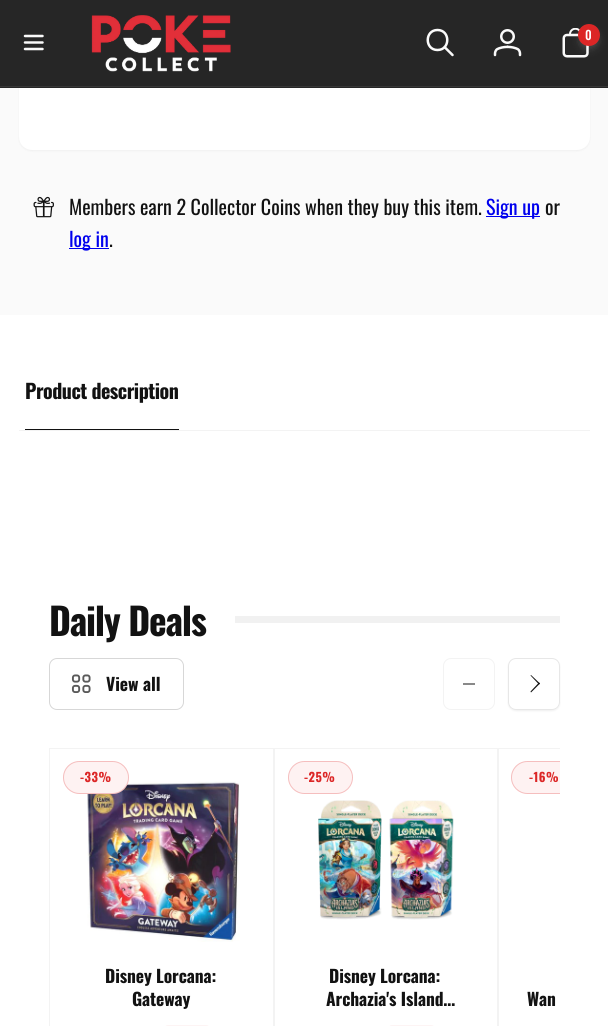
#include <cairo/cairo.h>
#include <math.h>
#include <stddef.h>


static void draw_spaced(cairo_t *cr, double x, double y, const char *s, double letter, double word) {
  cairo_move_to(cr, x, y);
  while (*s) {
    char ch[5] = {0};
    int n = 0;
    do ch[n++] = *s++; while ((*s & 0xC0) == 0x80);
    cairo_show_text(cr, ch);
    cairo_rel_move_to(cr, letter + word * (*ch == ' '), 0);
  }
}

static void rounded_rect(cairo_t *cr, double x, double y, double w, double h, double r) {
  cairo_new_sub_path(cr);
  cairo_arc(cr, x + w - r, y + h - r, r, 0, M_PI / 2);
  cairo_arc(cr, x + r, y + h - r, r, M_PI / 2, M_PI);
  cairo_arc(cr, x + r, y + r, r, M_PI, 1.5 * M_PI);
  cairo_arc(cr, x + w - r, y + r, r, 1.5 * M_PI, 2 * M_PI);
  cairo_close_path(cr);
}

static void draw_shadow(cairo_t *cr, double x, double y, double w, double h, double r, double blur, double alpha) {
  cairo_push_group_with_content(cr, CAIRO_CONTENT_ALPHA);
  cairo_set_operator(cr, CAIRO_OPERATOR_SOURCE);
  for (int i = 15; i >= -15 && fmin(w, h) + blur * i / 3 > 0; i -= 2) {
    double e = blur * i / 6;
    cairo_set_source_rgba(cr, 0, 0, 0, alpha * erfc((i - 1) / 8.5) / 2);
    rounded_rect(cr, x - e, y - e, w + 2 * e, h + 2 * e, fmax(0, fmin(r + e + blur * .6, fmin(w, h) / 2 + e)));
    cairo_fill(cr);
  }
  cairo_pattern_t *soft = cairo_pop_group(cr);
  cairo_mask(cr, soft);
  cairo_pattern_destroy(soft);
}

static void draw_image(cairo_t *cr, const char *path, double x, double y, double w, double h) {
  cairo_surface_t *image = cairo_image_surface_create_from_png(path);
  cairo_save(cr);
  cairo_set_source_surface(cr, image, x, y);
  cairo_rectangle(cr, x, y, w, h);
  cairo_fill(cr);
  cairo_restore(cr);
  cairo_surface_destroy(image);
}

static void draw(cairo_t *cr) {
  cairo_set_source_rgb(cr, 1, 1, 1);
  cairo_paint(cr);
  cairo_set_source_rgb(cr, 250 / 255.0, 250 / 255.0, 250 / 255.0);
  cairo_rectangle(cr, 0, 88, 608, 227);
  cairo_fill(cr);
  cairo_set_source_rgb(cr, 18 / 255.0, 18 / 255.0, 18 / 255.0);
  draw_shadow(cr, 19, -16, 571, 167, 13, 1, 0.05);
  cairo_set_source_rgb(cr, 1, 1, 1);
  rounded_rect(cr, 19, -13, 571, 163, 13);
  cairo_fill(cr);
  cairo_set_source_rgb(cr, 38 / 255.0, 38 / 255.0, 38 / 255.0);
  cairo_rectangle(cr, 0, 0, 608, 88);
  cairo_fill(cr);
  cairo_set_source_rgb(cr, 55 / 255.0, 55 / 255.0, 55 / 255.0);
  cairo_rectangle(cr, 0, 86, 608, 1);
  cairo_fill(cr);
  cairo_new_path(cr);
  cairo_move_to(cr, 25, 36);
  cairo_line_to(cr, 42.5, 36);
  cairo_move_to(cr, 25, 42.5);
  cairo_line_to(cr, 42.5, 42.5);
  cairo_move_to(cr, 25, 49);
  cairo_line_to(cr, 42.5, 49);
  cairo_set_source_rgb(cr, 250 / 255.0, 250 / 255.0, 250 / 255.0);
  cairo_set_line_width(cr, 2.5);
  cairo_set_line_cap(cr, CAIRO_LINE_CAP_ROUND);
  cairo_stroke(cr);
  draw_image(cr, "images/1.png", 91, 15, 140, 57);
  cairo_new_path(cr);
  cairo_move_to(cr, 452.5, 55);
  cairo_line_to(cr, 444.5, 47);
  cairo_move_to(cr, 437.5, 50);
  cairo_curve_to(cr, 450.5, 50, 450.5, 30, 437.5, 30);
  cairo_curve_to(cr, 424.5, 30, 424.5, 50, 437.5, 50);
  cairo_close_path(cr);
  cairo_set_line_join(cr, CAIRO_LINE_JOIN_ROUND);
  cairo_stroke(cr);
  draw_image(cr, "images/2.png", 493, 29, 29, 28);
  draw_image(cr, "images/3.png", 562, 28, 27, 30);
  cairo_set_source_rgb(cr, 250 / 255.0, 250 / 255.0, 250 / 255.0);
  draw_shadow(cr, 579, 28, 20, 20, 10, 2.5, 0.06);
  draw_shadow(cr, 579, 30, 20, 20, 10, 4, 0.1);
  cairo_set_source_rgb(cr, 220 / 255.0, 38 / 255.0, 38 / 255.0);
  cairo_arc(cr, 589, 35, 11, 0, 2 * M_PI);
  cairo_fill(cr);
  draw_image(cr, "images/4.png", 33, 196, 21, 22);
  cairo_set_source_rgb(cr, 0, 0, 238 / 255.0);
  cairo_rectangle(cr, 486, 216, 54, 1);
  cairo_fill(cr);
  cairo_rectangle(cr, 69, 248, 40, 1);
  cairo_fill(cr);
  cairo_set_source_rgb(cr, 243 / 255.0, 243 / 255.0, 243 / 255.0);
  cairo_rectangle(cr, 19, 430, 571, 1);
  cairo_fill(cr);
  cairo_set_source_rgb(cr, 18 / 255.0, 18 / 255.0, 18 / 255.0);
  cairo_rectangle(cr, 25, 429, 154, 1);
  cairo_fill(cr);
  cairo_set_source_rgb(cr, 241 / 255.0, 241 / 255.0, 241 / 255.0);
  cairo_rectangle(cr, 235, 616, 325, 7);
  cairo_fill(cr);
  rounded_rect(cr, 49.5, 658.5, 134, 51, 7.5);
  cairo_set_source_rgba(cr, 18 / 255.0, 18 / 255.0, 18 / 255.0, 0.17);
  cairo_set_line_width(cr, 1);
  cairo_set_line_cap(cr, CAIRO_LINE_CAP_BUTT);
  cairo_set_line_join(cr, CAIRO_LINE_JOIN_MITER);
  cairo_stroke(cr);
  draw_image(cr, "images/5.png", 71, 674, 20, 19);
  rounded_rect(cr, 443.5, 658.5, 51, 51, 7.5);
  cairo_set_source_rgb(cr, 243 / 255.0, 243 / 255.0, 243 / 255.0);
  cairo_stroke(cr);
  cairo_set_source_rgb(cr, 137 / 255.0, 137 / 255.0, 137 / 255.0);
  cairo_rectangle(cr, 463, 683, 12, 2);
  cairo_fill(cr);
  cairo_save(cr);
  cairo_set_fill_rule(cr, CAIRO_FILL_RULE_EVEN_ODD);
  cairo_new_path(cr);
  cairo_move_to(cr, 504, 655);
  cairo_line_to(cr, 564, 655);
  cairo_line_to(cr, 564, 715);
  cairo_line_to(cr, 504, 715);
  cairo_close_path(cr);
  cairo_move_to(cr, 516, 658);
  cairo_line_to(cr, 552, 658);
  cairo_curve_to(cr, 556.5, 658, 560, 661.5, 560, 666);
  cairo_line_to(cr, 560, 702);
  cairo_curve_to(cr, 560, 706.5, 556.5, 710, 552, 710);
  cairo_line_to(cr, 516, 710);
  cairo_curve_to(cr, 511.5, 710, 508, 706.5, 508, 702);
  cairo_line_to(cr, 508, 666);
  cairo_curve_to(cr, 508, 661.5, 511.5, 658, 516, 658);
  cairo_close_path(cr);
  cairo_clip(cr);
  cairo_set_source_rgb(cr, 18 / 255.0, 18 / 255.0, 18 / 255.0);
  draw_shadow(cr, 508, 659, 52, 52, 8, 1, 0.07);
  cairo_restore(cr);
  rounded_rect(cr, 508.5, 658.5, 51, 51, 7.5);
  cairo_set_source_rgba(cr, 18 / 255.0, 18 / 255.0, 18 / 255.0, 0.1);
  cairo_stroke(cr);
  cairo_set_source_rgb(cr, 18 / 255.0, 18 / 255.0, 18 / 255.0);
  cairo_new_path(cr);
  cairo_move_to(cr, 530.5, 675.5);
  cairo_line_to(cr, 531, 675);
  cairo_line_to(cr, 540, 683.5);
  cairo_line_to(cr, 539, 684.5);
  cairo_close_path(cr);
  cairo_fill(cr);
  cairo_new_path(cr);
  cairo_move_to(cr, 539, 682.5);
  cairo_line_to(cr, 540, 683.5);
  cairo_line_to(cr, 531, 692.5);
  cairo_line_to(cr, 530.5, 691.5);
  cairo_close_path(cr);
  cairo_fill(cr);
  cairo_rectangle(cr, 49.5, 748.5, 224, 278);
  cairo_set_source_rgb(cr, 243 / 255.0, 243 / 255.0, 243 / 255.0);
  cairo_stroke(cr);
  draw_image(cr, "images/6.png", 87, 781, 153, 161);
  cairo_set_source_rgb(cr, 254 / 255.0, 242 / 255.0, 242 / 255.0);
  rounded_rect(cr, 63, 761, 66, 33, 16.5);
  cairo_fill(cr);
  rounded_rect(cr, 63.5, 761.5, 65, 32, 16);
  cairo_set_source_rgba(cr, 220 / 255.0, 38 / 255.0, 38 / 255.0, 0.25);
  cairo_stroke(cr);
  cairo_set_source_rgb(cr, 253 / 255.0, 244 / 255.0, 244 / 255.0);
  rounded_rect(cr, 164, 1025, 46, 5, 4);
  cairo_fill(cr);
  cairo_rectangle(cr, 274.5, 748.5, 223, 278);
  cairo_set_source_rgb(cr, 243 / 255.0, 243 / 255.0, 243 / 255.0);
  cairo_stroke(cr);
  cairo_set_source_rgb(cr, 254 / 255.0, 242 / 255.0, 242 / 255.0);
  rounded_rect(cr, 288, 761, 65, 33, 16.5);
  cairo_fill(cr);
  rounded_rect(cr, 288.5, 761.5, 64, 32, 16);
  cairo_set_source_rgba(cr, 220 / 255.0, 38 / 255.0, 38 / 255.0, 0.25);
  cairo_stroke(cr);
  draw_image(cr, "images/7.png", 318, 800, 136, 120);
  cairo_set_source_rgb(cr, 253 / 255.0, 244 / 255.0, 244 / 255.0);
  rounded_rect(cr, 388, 1025, 47, 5, 4);
  cairo_fill(cr);
  cairo_save(cr);
  cairo_rectangle(cr, 49, 735, 511, 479);
  cairo_clip(cr);
  cairo_rectangle(cr, 498.5, 748.5, 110, 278);
  cairo_set_source_rgb(cr, 243 / 255.0, 243 / 255.0, 243 / 255.0);
  cairo_stroke(cr);
  cairo_set_source_rgb(cr, 254 / 255.0, 242 / 255.0, 242 / 255.0);
  rounded_rect(cr, 511, 761, 65, 33, 16.5);
  cairo_fill(cr);
  rounded_rect(cr, 511.5, 761.5, 64, 32, 16);
  cairo_set_source_rgba(cr, 220 / 255.0, 38 / 255.0, 38 / 255.0, 0.25);
  cairo_stroke(cr);
  cairo_restore(cr);
  cairo_select_font_face(cr, "Oswald Medium", CAIRO_FONT_SLANT_NORMAL, CAIRO_FONT_WEIGHT_NORMAL);
  cairo_set_font_size(cr, 12.5);
  cairo_set_source_rgb(cr, 1, 1, 1);
  cairo_move_to(cr, 585, 40);
  cairo_show_text(cr, "0");
  cairo_select_font_face(cr, "Oswald", CAIRO_FONT_SLANT_NORMAL, CAIRO_FONT_WEIGHT_NORMAL);
  cairo_set_font_size(cr, 20);
  cairo_set_source_rgb(cr, 18 / 255.0, 18 / 255.0, 18 / 255.0);
  cairo_move_to(cr, 69, 215);
  cairo_show_text(cr, "Members earn 2 Collector Coins when they buy this item.");
  cairo_set_source_rgb(cr, 0, 0, 238 / 255.0);
  cairo_move_to(cr, 486, 215);
  cairo_show_text(cr, "Sign up");
  cairo_set_source_rgb(cr, 18 / 255.0, 18 / 255.0, 18 / 255.0);
  cairo_move_to(cr, 545, 215);
  cairo_show_text(cr, "or");
  cairo_set_source_rgb(cr, 0, 0, 238 / 255.0);
  cairo_move_to(cr, 69, 247);
  cairo_show_text(cr, "log in");
  cairo_set_source_rgb(cr, 18 / 255.0, 18 / 255.0, 18 / 255.0);
  cairo_move_to(cr, 109, 247);
  cairo_show_text(cr, ".");
  cairo_select_font_face(cr, "Oswald", CAIRO_FONT_SLANT_NORMAL, CAIRO_FONT_WEIGHT_BOLD);
  draw_spaced(cr, 25, 399, "Product description", -0.5, 0);
  cairo_set_font_size(cr, 37.5);
  draw_spaced(cr, 49, 636, "Daily Deals", -1.1, 0);
  cairo_set_font_size(cr, 17.5);
  cairo_move_to(cr, 106, 691);
  cairo_show_text(cr, "View all");
  cairo_set_font_size(cr, 12.5);
  cairo_set_source_rgb(cr, 220 / 255.0, 38 / 255.0, 38 / 255.0);
  draw_spaced(cr, 80, 782, "-33%", 0.5, 0);
  cairo_set_font_size(cr, 17.5);
  cairo_set_source_rgb(cr, 18 / 255.0, 18 / 255.0, 18 / 255.0);
  draw_spaced(cr, 105, 983, "Disney Lorcana:", -0.1, 0);
  draw_spaced(cr, 132, 1006, "Gateway", -0.1, 0);
  cairo_set_font_size(cr, 12.5);
  cairo_set_source_rgb(cr, 220 / 255.0, 38 / 255.0, 38 / 255.0);
  draw_spaced(cr, 304, 782, "-25%", 0.5, 0);
  cairo_set_font_size(cr, 17.5);
  cairo_set_source_rgb(cr, 18 / 255.0, 18 / 255.0, 18 / 255.0);
  draw_spaced(cr, 329, 983, "Disney Lorcana:", -0.1, 0);
  draw_spaced(cr, 326, 1006, "Archazia's Island…", -0.1, 0);
  cairo_set_font_size(cr, 12.5);
  cairo_set_source_rgb(cr, 220 / 255.0, 38 / 255.0, 38 / 255.0);
  draw_spaced(cr, 529, 782, "-16%", 0.5, 0);
  cairo_set_font_size(cr, 17.5);
  cairo_set_source_rgb(cr, 18 / 255.0, 18 / 255.0, 18 / 255.0);
  draw_spaced(cr, 527, 1006, "Wan", -0.1, 0);
}

int main(void) {
  cairo_surface_t *surface = cairo_image_surface_create(CAIRO_FORMAT_RGB24, 608, 1026);
  cairo_t *cr = cairo_create(surface);
  cairo_font_options_t *options = cairo_font_options_create();
  cairo_font_options_set_hint_metrics(options, CAIRO_HINT_METRICS_OFF);
  cairo_font_options_set_hint_style(options, CAIRO_HINT_STYLE_NONE);
  cairo_set_font_options(cr, options);
  cairo_set_miter_limit(cr, 4);
  draw(cr);
  cairo_surface_write_to_png(surface, "out.png");
  cairo_font_options_destroy(options);
  cairo_destroy(cr);
  cairo_surface_destroy(surface);
  return 0;
}
